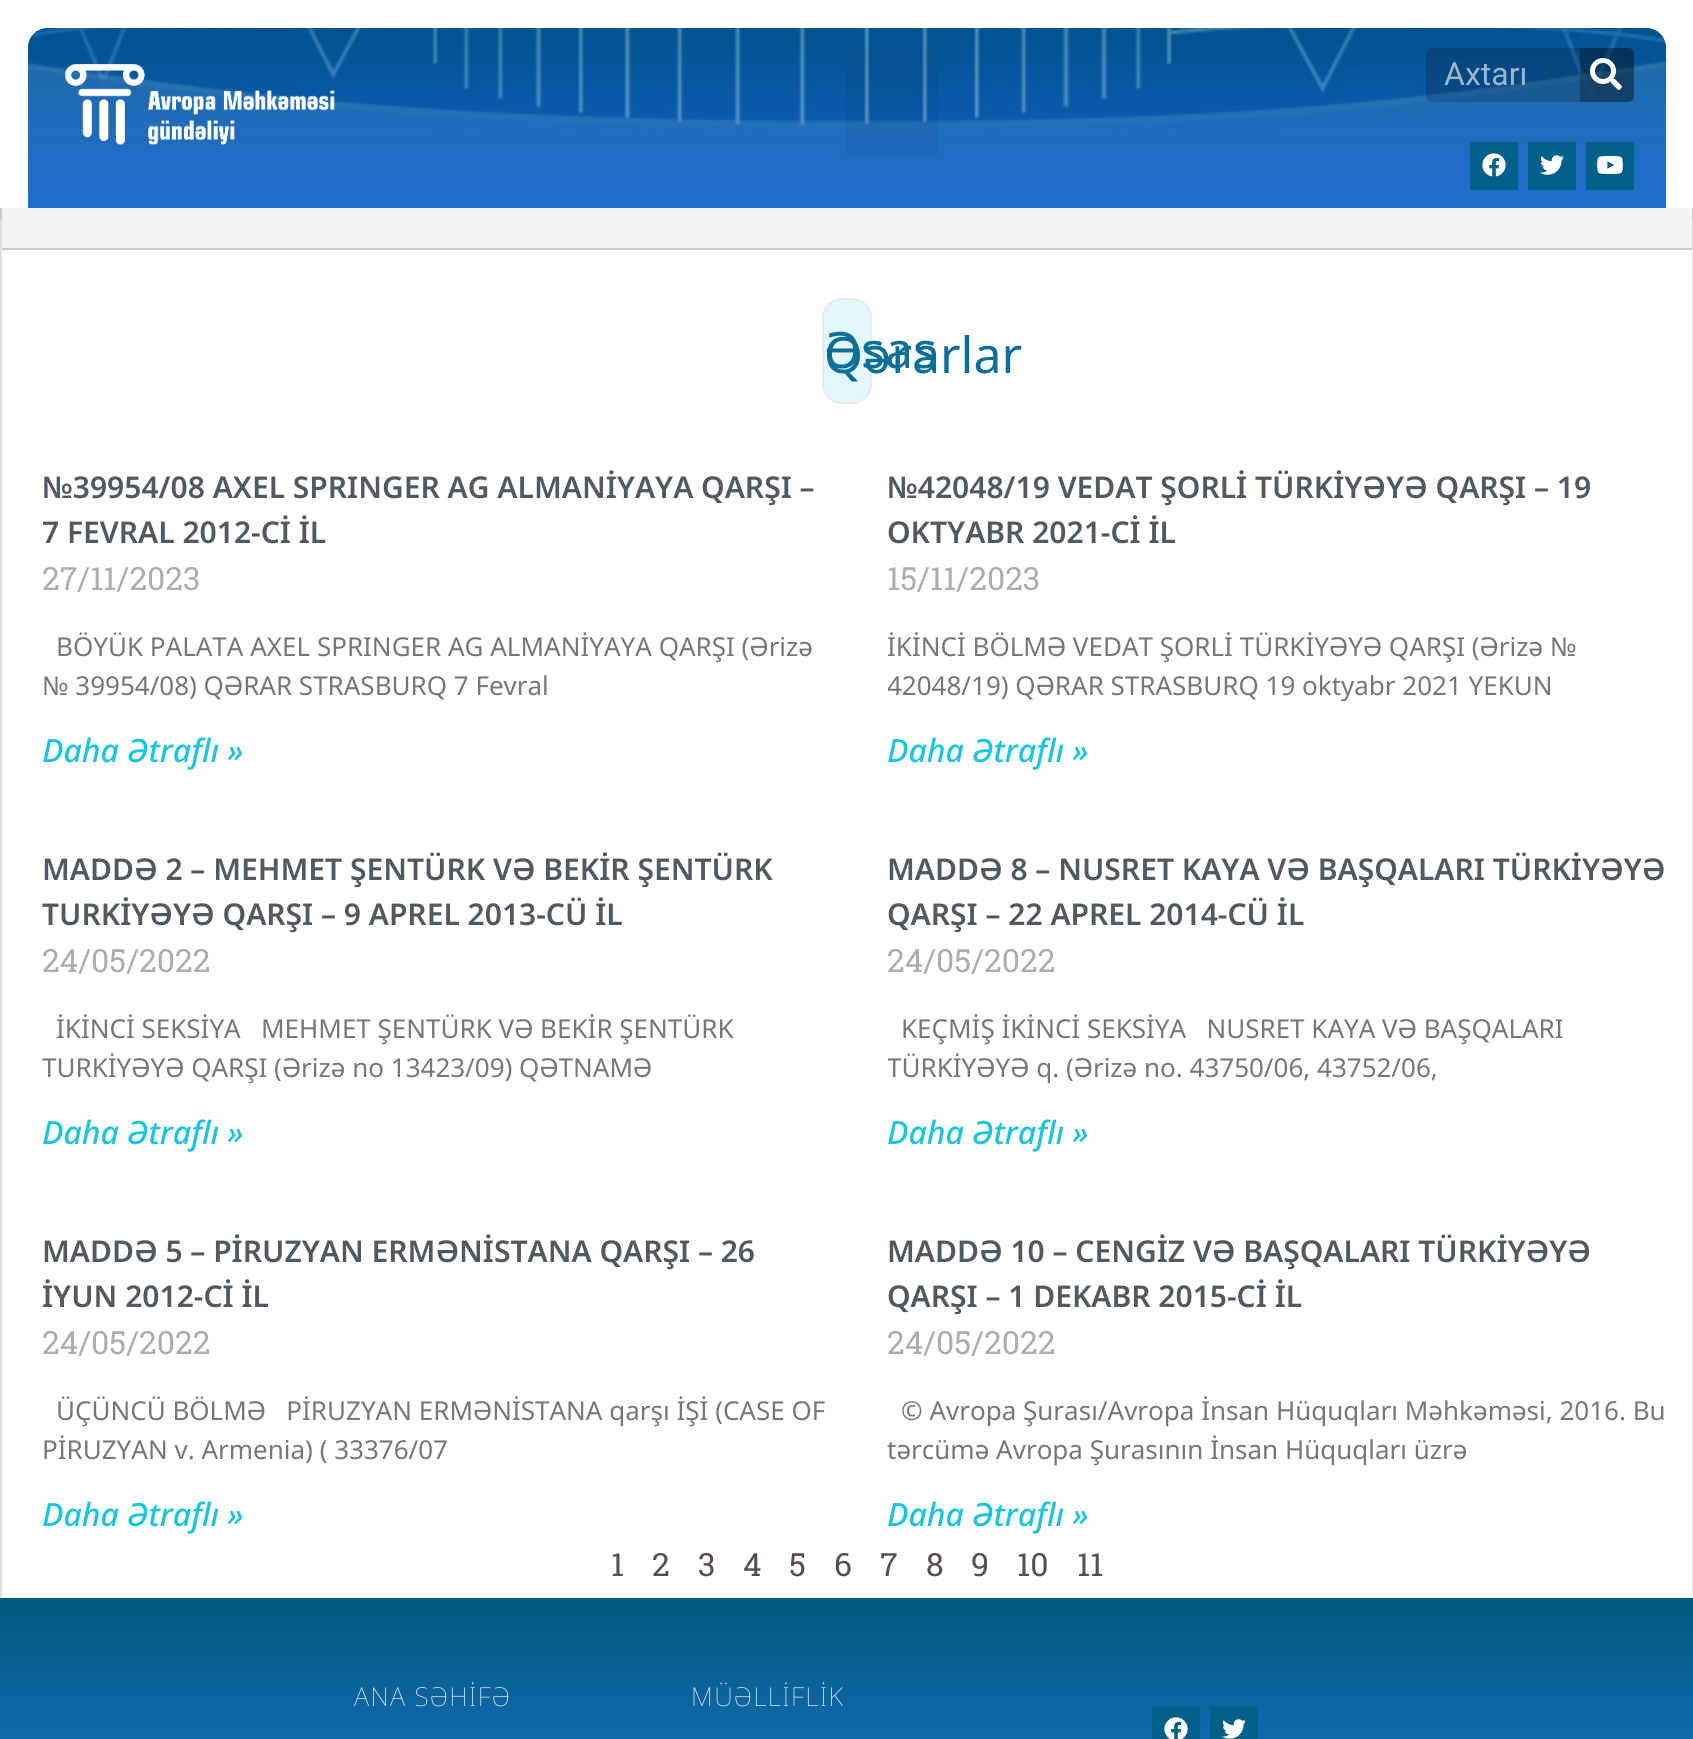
#include <cairo/cairo.h>
#include <math.h>
#include <stddef.h>


static void draw_spaced(cairo_t *cr, double x, double y, const char *s, double letter, double word) {
  cairo_move_to(cr, x, y);
  while (*s) {
    char ch[5] = {0};
    int n = 0;
    do ch[n++] = *s++; while ((*s & 0xC0) == 0x80);
    cairo_show_text(cr, ch);
    cairo_rel_move_to(cr, letter + word * (*ch == ' '), 0);
  }
}

static void rounded_rect(cairo_t *cr, double x, double y, double w, double h, double r) {
  cairo_new_sub_path(cr);
  cairo_arc(cr, x + w - r, y + h - r, r, 0, M_PI / 2);
  cairo_arc(cr, x + r, y + h - r, r, M_PI / 2, M_PI);
  cairo_arc(cr, x + r, y + r, r, M_PI, 1.5 * M_PI);
  cairo_arc(cr, x + w - r, y + r, r, 1.5 * M_PI, 2 * M_PI);
  cairo_close_path(cr);
}

static void draw_image(cairo_t *cr, const char *path, double x, double y, double w, double h) {
  cairo_surface_t *image = cairo_image_surface_create_from_png(path);
  cairo_save(cr);
  cairo_set_source_surface(cr, image, x, y);
  cairo_rectangle(cr, x, y, w, h);
  cairo_fill(cr);
  cairo_restore(cr);
  cairo_surface_destroy(image);
}

static void draw(cairo_t *cr) {
  cairo_pattern_t *gradient;
  cairo_set_source_rgb(cr, 1, 1, 1);
  cairo_paint(cr);
  cairo_set_source_rgb(cr, 0, 166 / 255.0, 236 / 255.0);
  cairo_new_path(cr);
  cairo_move_to(cr, 48, 28);
  cairo_line_to(cr, 1646, 28);
  cairo_curve_to(cr, 1657, 28, 1666, 37, 1666, 48);
  cairo_line_to(cr, 1666, 210);
  cairo_line_to(cr, 28, 210);
  cairo_line_to(cr, 28, 48);
  cairo_curve_to(cr, 28, 37, 37, 28, 48, 28);
  cairo_close_path(cr);
  cairo_fill(cr);
  draw_image(cr, "images/1.png", 28, 28, 1638, 180);
  gradient = cairo_pattern_create_linear(847, 28, 847, 210);
  cairo_pattern_add_color_stop_rgba(gradient, 0, 0, 89 / 255.0, 126 / 255.0, 0.5);
  cairo_pattern_add_color_stop_rgba(gradient, 1, 41 / 255.0, 127 / 255.0, 242 / 255.0, 0.5);
  cairo_set_source(cr, gradient);
  cairo_pattern_destroy(gradient);
  cairo_new_path(cr);
  cairo_move_to(cr, 48, 28);
  cairo_line_to(cr, 1646, 28);
  cairo_curve_to(cr, 1657, 28, 1666, 37, 1666, 48);
  cairo_line_to(cr, 1666, 210);
  cairo_line_to(cr, 28, 210);
  cairo_line_to(cr, 28, 48);
  cairo_curve_to(cr, 28, 37, 37, 28, 48, 28);
  cairo_close_path(cr);
  cairo_fill(cr);
  draw_image(cr, "images/2.png", 64, 64, 271, 81);
  cairo_set_source_rgba(cr, 0, 0, 0, 0.05);
  cairo_rectangle(cr, 846, 48, 92, 108);
  cairo_fill(cr);
  cairo_set_source_rgba(cr, 2 / 255.0, 1 / 255.0, 1 / 255.0, 0.17);
  rounded_rect(cr, 1426, 48, 208, 54, 6);
  cairo_fill(cr);
  cairo_set_source_rgba(cr, 2 / 255.0, 1 / 255.0, 1 / 255.0, 0.27);
  cairo_new_path(cr);
  cairo_move_to(cr, 1580, 48);
  cairo_line_to(cr, 1628, 48);
  cairo_curve_to(cr, 1631.5, 48, 1634, 50.5, 1634, 54);
  cairo_line_to(cr, 1634, 96);
  cairo_curve_to(cr, 1634, 99.5, 1631.5, 102, 1628, 102);
  cairo_line_to(cr, 1580, 102);
  cairo_close_path(cr);
  cairo_fill(cr);
  draw_image(cr, "images/3.png", 1590, 58, 32, 32);
  cairo_set_source_rgb(cr, 0, 96 / 255.0, 137 / 255.0);
  cairo_rectangle(cr, 1470, 142, 48, 48);
  cairo_fill(cr);
  draw_image(cr, "images/4.png", 1482, 153, 24, 24);
  cairo_rectangle(cr, 1528, 142, 48, 48);
  cairo_fill(cr);
  draw_image(cr, "images/5.png", 1540, 155, 24, 20);
  cairo_rectangle(cr, 1586, 142, 48, 48);
  cairo_fill(cr);
  draw_image(cr, "images/6.png", 1597, 156, 26, 18);
  cairo_set_source_rgb(cr, 244 / 255.0, 244 / 255.0, 244 / 255.0);
  cairo_rectangle(cr, 0, 208, 1692, 42);
  cairo_fill(cr);
  cairo_set_source_rgb(cr, 203 / 255.0, 203 / 255.0, 203 / 255.0);
  cairo_new_path(cr);
  cairo_move_to(cr, 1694, 208);
  cairo_line_to(cr, 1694, 250);
  cairo_line_to(cr, 1692, 248);
  cairo_line_to(cr, 1692, 208);
  cairo_close_path(cr);
  cairo_fill(cr);
  cairo_set_source_rgba(cr, 0, 0, 0, 0.17);
  cairo_new_path(cr);
  cairo_move_to(cr, 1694, 250);
  cairo_line_to(cr, 0, 250);
  cairo_line_to(cr, 2, 248);
  cairo_line_to(cr, 1692, 248);
  cairo_close_path(cr);
  cairo_fill(cr);
  cairo_new_path(cr);
  cairo_move_to(cr, 0, 250);
  cairo_line_to(cr, 0, 208);
  cairo_line_to(cr, 2, 208);
  cairo_line_to(cr, 2, 248);
  cairo_close_path(cr);
  cairo_fill(cr);
  cairo_set_source_rgb(cr, 224 / 255.0, 224 / 255.0, 224 / 255.0);
  cairo_rectangle(cr, 1692, 220, 1, 1376);
  cairo_fill(cr);
  cairo_set_source_rgb(cr, 230 / 255.0, 230 / 255.0, 230 / 255.0);
  cairo_rectangle(cr, 1692, 1596, 1, 2);
  cairo_fill(cr);
  cairo_set_source_rgb(cr, 224 / 255.0, 224 / 255.0, 224 / 255.0);
  cairo_rectangle(cr, 0, 220, 2, 1376);
  cairo_fill(cr);
  cairo_set_source_rgb(cr, 230 / 255.0, 230 / 255.0, 230 / 255.0);
  cairo_rectangle(cr, 0, 1596, 2, 2);
  cairo_fill(cr);
  cairo_set_source_rgb(cr, 228 / 255.0, 247 / 255.0, 1);
  rounded_rect(cr, 823, 299, 48, 104, 19);
  cairo_fill_preserve(cr);
  cairo_set_source_rgb(cr, 234 / 255.0, 234 / 255.0, 234 / 255.0);
  cairo_stroke(cr);
  gradient = cairo_pattern_create_linear(847, 1598, 847, 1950);
  cairo_pattern_add_color_stop_rgba(gradient, 0, 0, 89 / 255.0, 126 / 255.0, 1);
  cairo_pattern_add_color_stop_rgba(gradient, 1, 41 / 255.0, 127 / 255.0, 242 / 255.0, 1);
  cairo_set_source(cr, gradient);
  cairo_pattern_destroy(gradient);
  cairo_rectangle(cr, 0, 1598, 1693, 141);
  cairo_fill(cr);
  cairo_set_source_rgb(cr, 0, 96 / 255.0, 137 / 255.0);
  cairo_rectangle(cr, 1152, 1706, 48, 33);
  cairo_fill(cr);
  draw_image(cr, "images/7.png", 1164, 1717, 24, 22);
  cairo_rectangle(cr, 1210, 1706, 48, 33);
  cairo_fill(cr);
  draw_image(cr, "images/5.png", 1222, 1719, 24, 20);
  cairo_select_font_face(cr, "Roboto", CAIRO_FONT_SLANT_NORMAL, CAIRO_FONT_WEIGHT_NORMAL);
  cairo_set_font_size(cr, 32);
  cairo_set_source_rgb(cr, 156 / 255.0, 182 / 255.0, 206 / 255.0);
  cairo_move_to(cr, 1444, 85);
  cairo_show_text(cr, "Axtarı");
  cairo_select_font_face(cr, "Noto Sans", CAIRO_FONT_SLANT_NORMAL, CAIRO_FONT_WEIGHT_NORMAL);
  cairo_set_font_size(cr, 50);
  cairo_set_source_rgb(cr, 12 / 255.0, 111 / 255.0, 153 / 255.0);
  cairo_move_to(cr, 824, 368);
  cairo_show_text(cr, "Əsas");
  cairo_move_to(cr, 824, 373);
  cairo_show_text(cr, "Qərarlar");
  cairo_select_font_face(cr, "Noto Sans SemiBold", CAIRO_FONT_SLANT_NORMAL, CAIRO_FONT_WEIGHT_NORMAL);
  cairo_set_font_size(cr, 30);
  cairo_set_source_rgb(cr, 84 / 255.0, 89 / 255.0, 95 / 255.0);
  cairo_move_to(cr, 42, 498);
  cairo_show_text(cr, "№39954/08 AXEL SPRINGER AG ALMANİYAYA QARŞI –");
  cairo_move_to(cr, 42, 543);
  cairo_show_text(cr, "7 FEVRAL 2012-Cİ İL");
  cairo_select_font_face(cr, "Roboto Slab", CAIRO_FONT_SLANT_NORMAL, CAIRO_FONT_WEIGHT_NORMAL);
  cairo_set_font_size(cr, 32);
  cairo_set_source_rgb(cr, 173 / 255.0, 173 / 255.0, 173 / 255.0);
  cairo_move_to(cr, 42, 590);
  cairo_show_text(cr, "27/11/2023");
  cairo_select_font_face(cr, "Noto Sans", CAIRO_FONT_SLANT_NORMAL, CAIRO_FONT_WEIGHT_NORMAL);
  cairo_set_font_size(cr, 26);
  cairo_set_source_rgb(cr, 119 / 255.0, 119 / 255.0, 119 / 255.0);
  cairo_move_to(cr, 56, 656);
  cairo_show_text(cr, "BÖYÜK PALATA AXEL SPRINGER AG ALMANİYAYA QARŞI (Ərizə");
  cairo_move_to(cr, 42, 695);
  cairo_show_text(cr, "№ 39954/08) QƏRAR STRASBURQ 7 Fevral");
  cairo_select_font_face(cr, "Noto Sans Medium", CAIRO_FONT_SLANT_ITALIC, CAIRO_FONT_WEIGHT_NORMAL);
  cairo_set_font_size(cr, 32);
  cairo_set_source_rgb(cr, 29 / 255.0, 196 / 255.0, 221 / 255.0);
  cairo_move_to(cr, 42, 762);
  cairo_show_text(cr, "Daha Ətraflı »");
  cairo_select_font_face(cr, "Noto Sans SemiBold", CAIRO_FONT_SLANT_NORMAL, CAIRO_FONT_WEIGHT_NORMAL);
  cairo_set_font_size(cr, 30);
  cairo_set_source_rgb(cr, 84 / 255.0, 89 / 255.0, 95 / 255.0);
  cairo_move_to(cr, 887, 498);
  cairo_show_text(cr, "№42048/19 VEDAT ŞORLİ TÜRKİYƏYƏ QARŞI – 19");
  cairo_move_to(cr, 887, 543);
  cairo_show_text(cr, "OKTYABR 2021-Cİ İL");
  cairo_select_font_face(cr, "Roboto Slab", CAIRO_FONT_SLANT_NORMAL, CAIRO_FONT_WEIGHT_NORMAL);
  cairo_set_font_size(cr, 32);
  cairo_set_source_rgb(cr, 173 / 255.0, 173 / 255.0, 173 / 255.0);
  cairo_move_to(cr, 887, 590);
  cairo_show_text(cr, "15/11/2023");
  cairo_select_font_face(cr, "Noto Sans", CAIRO_FONT_SLANT_NORMAL, CAIRO_FONT_WEIGHT_NORMAL);
  cairo_set_font_size(cr, 26);
  cairo_set_source_rgb(cr, 119 / 255.0, 119 / 255.0, 119 / 255.0);
  cairo_move_to(cr, 887, 656);
  cairo_show_text(cr, "İKİNCİ BÖLMƏ VEDAT ŞORLİ TÜRKİYƏYƏ QARŞI (Ərizə №");
  cairo_save(cr);
  cairo_rectangle(cr, 888, 464, 784, 312);
  cairo_clip(cr);
  cairo_move_to(cr, 887, 695);
  cairo_show_text(cr, "42048/19) QƏRAR STRASBURQ 19 oktyabr 2021 YEKUN");
  cairo_restore(cr);
  cairo_select_font_face(cr, "Noto Sans Medium", CAIRO_FONT_SLANT_ITALIC, CAIRO_FONT_WEIGHT_NORMAL);
  cairo_set_font_size(cr, 32);
  cairo_set_source_rgb(cr, 29 / 255.0, 196 / 255.0, 221 / 255.0);
  cairo_move_to(cr, 887, 762);
  cairo_show_text(cr, "Daha Ətraflı »");
  cairo_select_font_face(cr, "Noto Sans SemiBold", CAIRO_FONT_SLANT_NORMAL, CAIRO_FONT_WEIGHT_NORMAL);
  cairo_set_font_size(cr, 30);
  cairo_set_source_rgb(cr, 84 / 255.0, 89 / 255.0, 95 / 255.0);
  cairo_move_to(cr, 42, 880);
  cairo_show_text(cr, "MADDƏ 2 – MEHMET ŞENTÜRK VƏ BEKİR ŞENTÜRK");
  cairo_move_to(cr, 42, 925);
  cairo_show_text(cr, "TURKİYƏYƏ QARŞI – 9 APREL 2013-CÜ İL");
  cairo_select_font_face(cr, "Roboto Slab", CAIRO_FONT_SLANT_NORMAL, CAIRO_FONT_WEIGHT_NORMAL);
  cairo_set_font_size(cr, 32);
  cairo_set_source_rgb(cr, 173 / 255.0, 173 / 255.0, 173 / 255.0);
  cairo_move_to(cr, 42, 972);
  cairo_show_text(cr, "24/05/2022");
  cairo_select_font_face(cr, "Noto Sans", CAIRO_FONT_SLANT_NORMAL, CAIRO_FONT_WEIGHT_NORMAL);
  cairo_set_font_size(cr, 26);
  cairo_set_source_rgb(cr, 119 / 255.0, 119 / 255.0, 119 / 255.0);
  cairo_move_to(cr, 56, 1038);
  cairo_show_text(cr, "İKİNCİ SEKSİYA   MEHMET ŞENTÜRK VƏ BEKİR ŞENTÜRK");
  cairo_move_to(cr, 42, 1077);
  cairo_show_text(cr, "TURKİYƏYƏ QARŞI (Ərizə no 13423/09) QƏTNAMƏ");
  cairo_select_font_face(cr, "Noto Sans Medium", CAIRO_FONT_SLANT_ITALIC, CAIRO_FONT_WEIGHT_NORMAL);
  cairo_set_font_size(cr, 32);
  cairo_set_source_rgb(cr, 29 / 255.0, 196 / 255.0, 221 / 255.0);
  cairo_move_to(cr, 42, 1144);
  cairo_show_text(cr, "Daha Ətraflı »");
  cairo_select_font_face(cr, "Noto Sans SemiBold", CAIRO_FONT_SLANT_NORMAL, CAIRO_FONT_WEIGHT_NORMAL);
  cairo_set_font_size(cr, 30);
  cairo_set_source_rgb(cr, 84 / 255.0, 89 / 255.0, 95 / 255.0);
  cairo_move_to(cr, 887, 880);
  cairo_show_text(cr, "MADDƏ 8 – NUSRET KAYA VƏ BAŞQALARI TÜRKİYƏYƏ");
  cairo_move_to(cr, 887, 925);
  cairo_show_text(cr, "QARŞI – 22 APREL 2014-CÜ İL");
  cairo_select_font_face(cr, "Roboto Slab", CAIRO_FONT_SLANT_NORMAL, CAIRO_FONT_WEIGHT_NORMAL);
  cairo_set_font_size(cr, 32);
  cairo_set_source_rgb(cr, 173 / 255.0, 173 / 255.0, 173 / 255.0);
  cairo_move_to(cr, 887, 972);
  cairo_show_text(cr, "24/05/2022");
  cairo_select_font_face(cr, "Noto Sans", CAIRO_FONT_SLANT_NORMAL, CAIRO_FONT_WEIGHT_NORMAL);
  cairo_set_font_size(cr, 26);
  cairo_set_source_rgb(cr, 119 / 255.0, 119 / 255.0, 119 / 255.0);
  cairo_move_to(cr, 901, 1038);
  cairo_show_text(cr, "KEÇMİŞ İKİNCİ SEKSİYA   NUSRET KAYA VƏ BAŞQALARI");
  cairo_save(cr);
  cairo_rectangle(cr, 888, 846, 784, 312);
  cairo_clip(cr);
  cairo_move_to(cr, 887, 1077);
  cairo_show_text(cr, "TÜRKİYƏYƏ q. (Ərizə no. 43750/06, 43752/06,");
  cairo_restore(cr);
  cairo_select_font_face(cr, "Noto Sans Medium", CAIRO_FONT_SLANT_ITALIC, CAIRO_FONT_WEIGHT_NORMAL);
  cairo_set_font_size(cr, 32);
  cairo_set_source_rgb(cr, 29 / 255.0, 196 / 255.0, 221 / 255.0);
  cairo_move_to(cr, 887, 1144);
  cairo_show_text(cr, "Daha Ətraflı »");
  cairo_select_font_face(cr, "Noto Sans SemiBold", CAIRO_FONT_SLANT_NORMAL, CAIRO_FONT_WEIGHT_NORMAL);
  cairo_set_font_size(cr, 30);
  cairo_set_source_rgb(cr, 84 / 255.0, 89 / 255.0, 95 / 255.0);
  cairo_move_to(cr, 42, 1262);
  cairo_show_text(cr, "MADDƏ 5 – PİRUZYAN ERMƏNİSTANA QARŞI – 26");
  cairo_move_to(cr, 42, 1307);
  cairo_show_text(cr, "İYUN 2012-Cİ İL");
  cairo_select_font_face(cr, "Roboto Slab", CAIRO_FONT_SLANT_NORMAL, CAIRO_FONT_WEIGHT_NORMAL);
  cairo_set_font_size(cr, 32);
  cairo_set_source_rgb(cr, 173 / 255.0, 173 / 255.0, 173 / 255.0);
  cairo_move_to(cr, 42, 1354);
  cairo_show_text(cr, "24/05/2022");
  cairo_select_font_face(cr, "Noto Sans", CAIRO_FONT_SLANT_NORMAL, CAIRO_FONT_WEIGHT_NORMAL);
  cairo_set_font_size(cr, 26);
  cairo_set_source_rgb(cr, 119 / 255.0, 119 / 255.0, 119 / 255.0);
  cairo_move_to(cr, 56, 1420);
  cairo_show_text(cr, "ÜÇÜNCÜ BÖLMƏ   PİRUZYAN ERMƏNİSTANA qarşı İŞİ (CASE OF");
  cairo_move_to(cr, 42, 1459);
  cairo_show_text(cr, "PİRUZYAN v. Armenia) ( 33376/07");
  cairo_select_font_face(cr, "Noto Sans Medium", CAIRO_FONT_SLANT_ITALIC, CAIRO_FONT_WEIGHT_NORMAL);
  cairo_set_font_size(cr, 32);
  cairo_set_source_rgb(cr, 29 / 255.0, 196 / 255.0, 221 / 255.0);
  cairo_move_to(cr, 42, 1526);
  cairo_show_text(cr, "Daha Ətraflı »");
  cairo_select_font_face(cr, "Noto Sans SemiBold", CAIRO_FONT_SLANT_NORMAL, CAIRO_FONT_WEIGHT_NORMAL);
  cairo_set_font_size(cr, 30);
  cairo_set_source_rgb(cr, 84 / 255.0, 89 / 255.0, 95 / 255.0);
  cairo_move_to(cr, 887, 1262);
  cairo_show_text(cr, "MADDƏ 10 – CENGİZ VƏ BAŞQALARI TÜRKİYƏYƏ");
  cairo_move_to(cr, 887, 1307);
  cairo_show_text(cr, "QARŞI – 1 DEKABR 2015-Cİ İL");
  cairo_select_font_face(cr, "Roboto Slab", CAIRO_FONT_SLANT_NORMAL, CAIRO_FONT_WEIGHT_NORMAL);
  cairo_set_font_size(cr, 32);
  cairo_set_source_rgb(cr, 173 / 255.0, 173 / 255.0, 173 / 255.0);
  cairo_move_to(cr, 887, 1354);
  cairo_show_text(cr, "24/05/2022");
  cairo_select_font_face(cr, "Noto Sans", CAIRO_FONT_SLANT_NORMAL, CAIRO_FONT_WEIGHT_NORMAL);
  cairo_set_font_size(cr, 26);
  cairo_set_source_rgb(cr, 119 / 255.0, 119 / 255.0, 119 / 255.0);
  cairo_move_to(cr, 901, 1420);
  cairo_show_text(cr, "© Avropa Şurası/Avropa İnsan Hüquqları Məhkəməsi, 2016. Bu");
  cairo_move_to(cr, 887, 1459);
  cairo_show_text(cr, "tərcümə Avropa Şurasının İnsan Hüquqları üzrə");
  cairo_select_font_face(cr, "Noto Sans Medium", CAIRO_FONT_SLANT_ITALIC, CAIRO_FONT_WEIGHT_NORMAL);
  cairo_set_font_size(cr, 32);
  cairo_set_source_rgb(cr, 29 / 255.0, 196 / 255.0, 221 / 255.0);
  cairo_move_to(cr, 887, 1526);
  cairo_show_text(cr, "Daha Ətraflı »");
  cairo_select_font_face(cr, "Roboto Slab", CAIRO_FONT_SLANT_NORMAL, CAIRO_FONT_WEIGHT_NORMAL);
  cairo_set_source_rgb(cr, 86 / 255.0, 79 / 255.0, 79 / 255.0);
  cairo_move_to(cr, 611, 1576);
  cairo_show_text(cr, "1");
  cairo_move_to(cr, 652, 1576);
  cairo_show_text(cr, "2");
  cairo_move_to(cr, 698, 1576);
  cairo_show_text(cr, "3");
  cairo_move_to(cr, 743, 1576);
  cairo_show_text(cr, "4");
  cairo_move_to(cr, 789, 1576);
  cairo_show_text(cr, "5");
  cairo_move_to(cr, 834, 1576);
  cairo_show_text(cr, "6");
  cairo_move_to(cr, 880, 1576);
  cairo_show_text(cr, "7");
  cairo_move_to(cr, 926, 1576);
  cairo_show_text(cr, "8");
  cairo_move_to(cr, 971, 1576);
  cairo_show_text(cr, "9");
  cairo_move_to(cr, 1017, 1576);
  cairo_show_text(cr, "10");
  cairo_move_to(cr, 1077, 1576);
  cairo_show_text(cr, "11");
  cairo_select_font_face(cr, "Noto Sans Thin", CAIRO_FONT_SLANT_NORMAL, CAIRO_FONT_WEIGHT_NORMAL);
  cairo_set_font_size(cr, 26);
  cairo_set_source_rgb(cr, 1, 1, 1);
  draw_spaced(cr, 354, 1706, "ANA SƏHİFƏ", 1.4, 0);
  draw_spaced(cr, 691, 1706, "MÜƏLLİFLİK", 1.4, 0);
}

int main(void) {
  cairo_surface_t *surface = cairo_image_surface_create(CAIRO_FORMAT_RGB24, 1693, 1739);
  cairo_t *cr = cairo_create(surface);
  cairo_font_options_t *options = cairo_font_options_create();
  cairo_font_options_set_hint_metrics(options, CAIRO_HINT_METRICS_OFF);
  cairo_font_options_set_hint_style(options, CAIRO_HINT_STYLE_NONE);
  cairo_set_font_options(cr, options);
  cairo_set_miter_limit(cr, 4);
  draw(cr);
  cairo_surface_write_to_png(surface, "out.png");
  cairo_font_options_destroy(options);
  cairo_destroy(cr);
  cairo_surface_destroy(surface);
  return 0;
}
